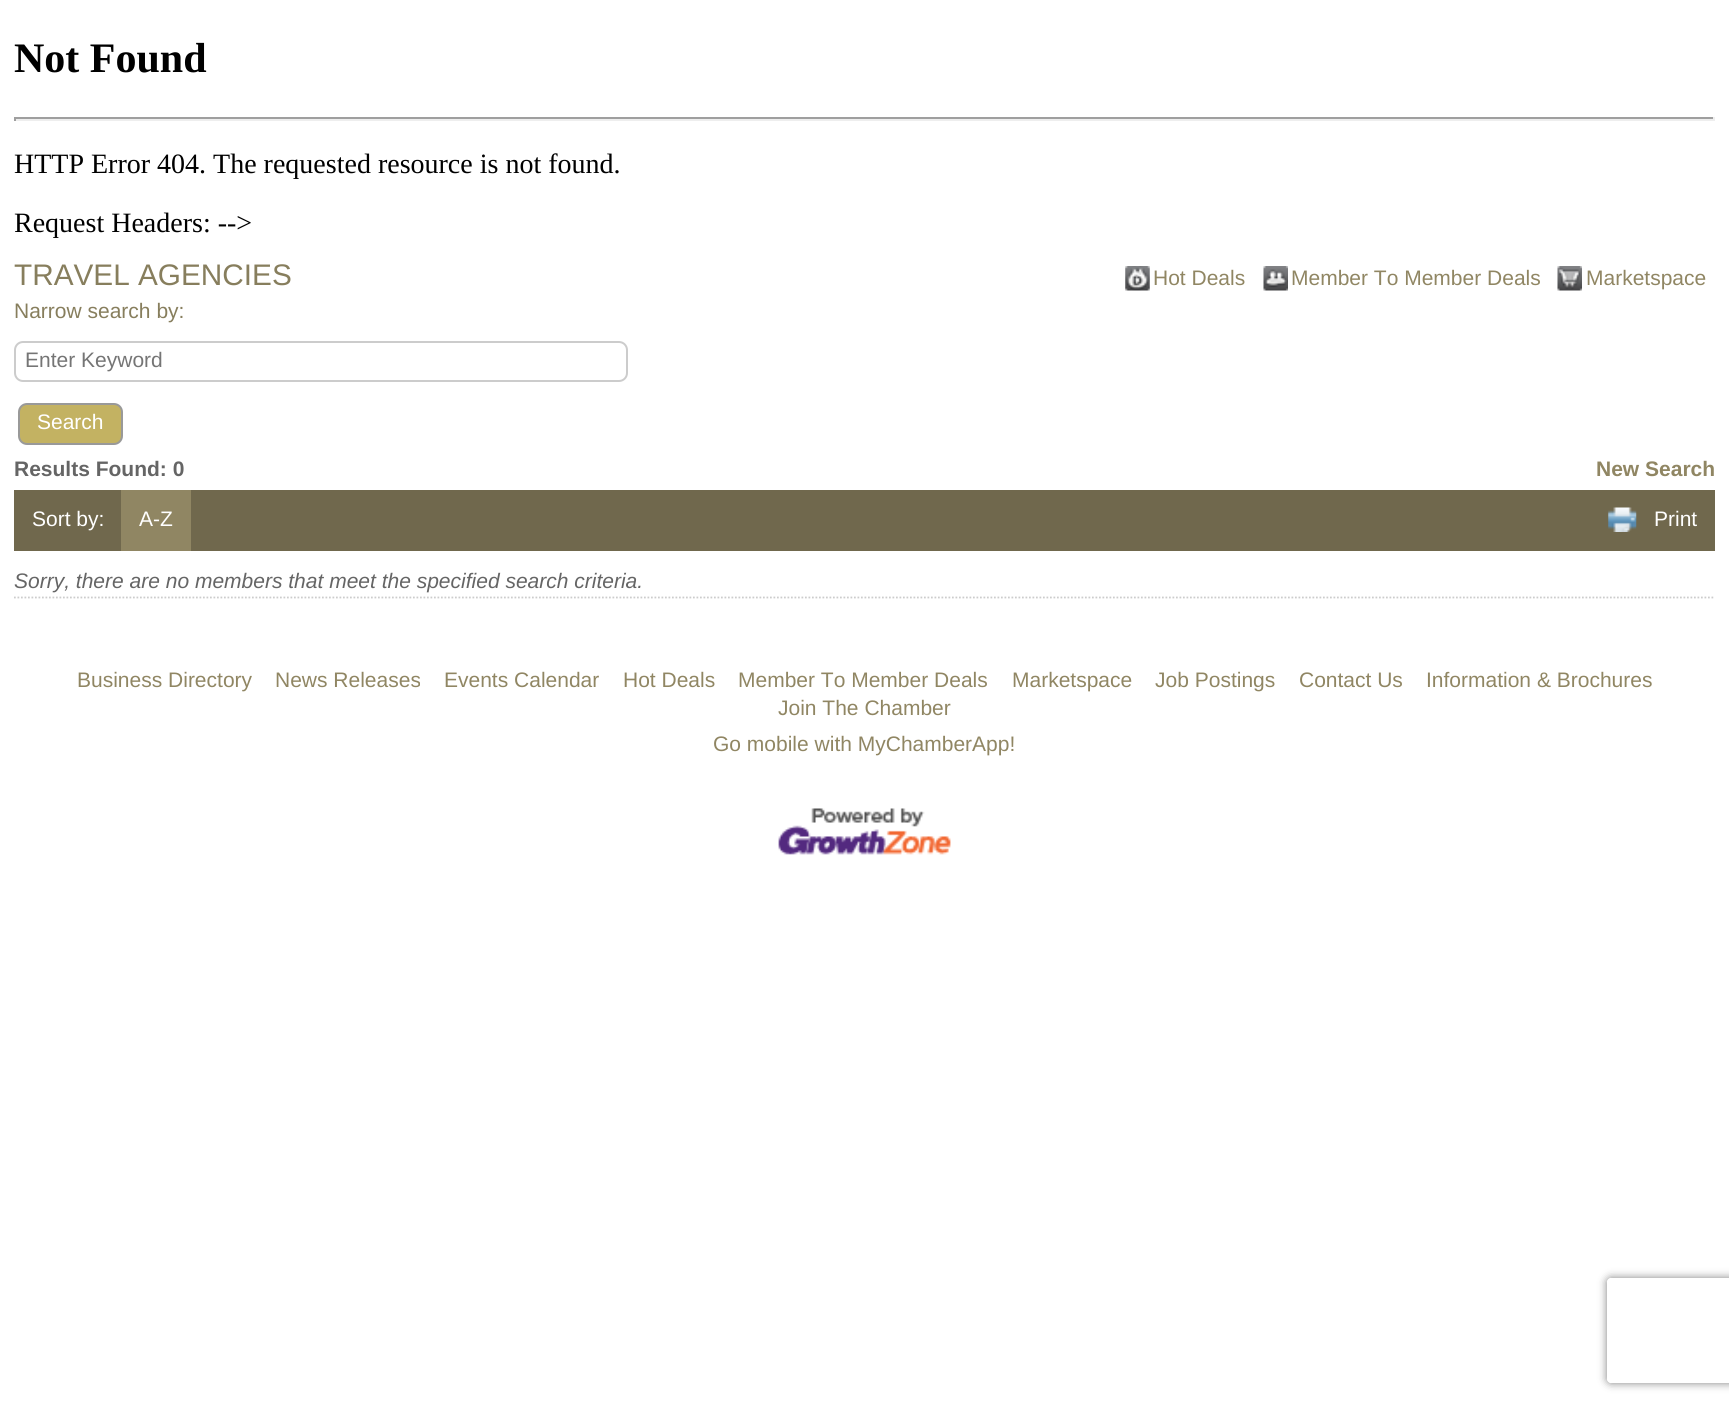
#include <cairo/cairo.h>
#include <math.h>
#include <stddef.h>


static void rounded_rect(cairo_t *cr, double x, double y, double w, double h, double r) {
  cairo_new_sub_path(cr);
  cairo_arc(cr, x + w - r, y + h - r, r, 0, M_PI / 2);
  cairo_arc(cr, x + r, y + h - r, r, M_PI / 2, M_PI);
  cairo_arc(cr, x + r, y + r, r, M_PI, 1.5 * M_PI);
  cairo_arc(cr, x + w - r, y + r, r, 1.5 * M_PI, 2 * M_PI);
  cairo_close_path(cr);
}

static void draw_shadow(cairo_t *cr, double x, double y, double w, double h, double r, double blur, double alpha) {
  cairo_push_group_with_content(cr, CAIRO_CONTENT_ALPHA);
  cairo_set_operator(cr, CAIRO_OPERATOR_SOURCE);
  for (int i = 15; i >= -15 && fmin(w, h) + blur * i / 3 > 0; i -= 2) {
    double e = blur * i / 6;
    cairo_set_source_rgba(cr, 0, 0, 0, alpha * erfc((i - 1) / 8.5) / 2);
    rounded_rect(cr, x - e, y - e, w + 2 * e, h + 2 * e, fmax(0, fmin(r + e + blur * .6, fmin(w, h) / 2 + e)));
    cairo_fill(cr);
  }
  cairo_pattern_t *soft = cairo_pop_group(cr);
  cairo_mask(cr, soft);
  cairo_pattern_destroy(soft);
}

static void draw_image(cairo_t *cr, const char *path, double x, double y, double w, double h) {
  cairo_surface_t *image = cairo_image_surface_create_from_png(path);
  cairo_save(cr);
  cairo_set_source_surface(cr, image, x, y);
  cairo_rectangle(cr, x, y, w, h);
  cairo_fill(cr);
  cairo_restore(cr);
  cairo_surface_destroy(image);
}

static void draw(cairo_t *cr) {
  cairo_set_source_rgb(cr, 1, 1, 1);
  cairo_paint(cr);
  cairo_set_source_rgb(cr, 159 / 255.0, 159 / 255.0, 159 / 255.0);
  cairo_rectangle(cr, 14, 117, 1701, 2);
  cairo_fill(cr);
  cairo_set_source_rgb(cr, 238 / 255.0, 238 / 255.0, 238 / 255.0);
  cairo_rectangle(cr, 1713, 117, 2, 4);
  cairo_fill(cr);
  cairo_rectangle(cr, 14, 119, 1701, 2);
  cairo_fill(cr);
  cairo_set_source_rgb(cr, 159 / 255.0, 159 / 255.0, 159 / 255.0);
  cairo_rectangle(cr, 14, 117, 2, 4);
  cairo_fill(cr);
  draw_image(cr, "images/1.png", 1125, 266, 25, 25);
  draw_image(cr, "images/2.png", 1263, 266, 25, 25);
  draw_image(cr, "images/3.png", 1557, 266, 25, 25);
  rounded_rect(cr, 15, 342, 612, 39, 8);
  cairo_set_source_rgb(cr, 204 / 255.0, 204 / 255.0, 204 / 255.0);
  cairo_stroke(cr);
  cairo_set_source_rgb(cr, 195 / 255.0, 178 / 255.0, 98 / 255.0);
  rounded_rect(cr, 19, 404, 103, 40, 8);
  cairo_fill_preserve(cr);
  cairo_set_source_rgb(cr, 153 / 255.0, 153 / 255.0, 153 / 255.0);
  cairo_stroke(cr);
  cairo_set_source_rgb(cr, 112 / 255.0, 104 / 255.0, 77 / 255.0);
  cairo_rectangle(cr, 14, 490, 1701, 61);
  cairo_fill(cr);
  cairo_set_source_rgb(cr, 144 / 255.0, 134 / 255.0, 99 / 255.0);
  cairo_rectangle(cr, 121, 490, 70, 61);
  cairo_fill(cr);
  draw_image(cr, "images/4.png", 1608, 507, 29, 25);
  cairo_new_path(cr);
  cairo_move_to(cr, 14, 597.5);
  cairo_line_to(cr, 1715, 597.5);
  cairo_set_source_rgb(cr, 204 / 255.0, 204 / 255.0, 204 / 255.0);
  cairo_set_line_width(cr, 1.8);
  cairo_set_dash(cr, (double[]){1.75, 1.75}, 2, 0);
  cairo_stroke(cr);
  draw_image(cr, "images/5.png", 778, 808, 173, 47);
  cairo_save(cr);
  cairo_set_fill_rule(cr, CAIRO_FILL_RULE_EVEN_ODD);
  cairo_new_path(cr);
  cairo_move_to(cr, 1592, 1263);
  cairo_line_to(cr, 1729, 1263);
  cairo_line_to(cr, 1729, 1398);
  cairo_line_to(cr, 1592, 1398);
  cairo_close_path(cr);
  cairo_move_to(cr, 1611, 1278);
  cairo_line_to(cr, 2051, 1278);
  cairo_curve_to(cr, 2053, 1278, 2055, 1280, 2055, 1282);
  cairo_line_to(cr, 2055, 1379);
  cairo_curve_to(cr, 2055, 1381, 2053, 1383, 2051, 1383);
  cairo_line_to(cr, 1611, 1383);
  cairo_curve_to(cr, 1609, 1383, 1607, 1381, 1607, 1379);
  cairo_line_to(cr, 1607, 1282);
  cairo_curve_to(cr, 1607, 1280, 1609, 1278, 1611, 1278);
  cairo_close_path(cr);
  cairo_clip(cr);
  cairo_set_source_rgb(cr, 128 / 255.0, 128 / 255.0, 128 / 255.0);
  draw_shadow(cr, 1607, 1278, 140, 105, 4, 4.5, 1);
  cairo_restore(cr);
  cairo_select_font_face(cr, "Liberation Serif", CAIRO_FONT_SLANT_NORMAL, CAIRO_FONT_WEIGHT_BOLD);
  cairo_set_font_size(cr, 42);
  cairo_set_source_rgb(cr, 0, 0, 0);
  cairo_move_to(cr, 14, 72);
  cairo_show_text(cr, "Not Found");
  cairo_select_font_face(cr, "Liberation Serif", CAIRO_FONT_SLANT_NORMAL, CAIRO_FONT_WEIGHT_NORMAL);
  cairo_set_font_size(cr, 28);
  cairo_move_to(cr, 14, 173);
  cairo_show_text(cr, "HTTP Error 404. The requested resource is not found.");
  cairo_move_to(cr, 14, 232);
  cairo_show_text(cr, "Request Headers: -->");
  cairo_select_font_face(cr, "Liberation Sans", CAIRO_FONT_SLANT_NORMAL, CAIRO_FONT_WEIGHT_NORMAL);
  cairo_set_font_size(cr, 29.75);
  cairo_set_source_rgb(cr, 135 / 255.0, 126 / 255.0, 93 / 255.0);
  cairo_move_to(cr, 14, 285);
  cairo_show_text(cr, "TRAVEL AGENCIES");
  cairo_set_font_size(cr, 21);
  cairo_set_source_rgb(cr, 144 / 255.0, 134 / 255.0, 99 / 255.0);
  cairo_move_to(cr, 1153, 285);
  cairo_show_text(cr, "Hot Deals");
  cairo_move_to(cr, 1291, 285);
  cairo_show_text(cr, "Member To Member Deals");
  cairo_move_to(cr, 1586, 285);
  cairo_show_text(cr, "Marketspace");
  cairo_set_source_rgb(cr, 135 / 255.0, 126 / 255.0, 93 / 255.0);
  cairo_move_to(cr, 14, 318);
  cairo_show_text(cr, "Narrow search by:");
  cairo_set_source_rgb(cr, 117 / 255.0, 117 / 255.0, 117 / 255.0);
  cairo_move_to(cr, 25, 367);
  cairo_show_text(cr, "Enter Keyword");
  cairo_set_source_rgb(cr, 1, 1, 1);
  cairo_move_to(cr, 37, 429);
  cairo_show_text(cr, "Search");
  cairo_select_font_face(cr, "Liberation Sans", CAIRO_FONT_SLANT_NORMAL, CAIRO_FONT_WEIGHT_BOLD);
  cairo_set_source_rgb(cr, 101 / 255.0, 101 / 255.0, 101 / 255.0);
  cairo_move_to(cr, 14, 476);
  cairo_show_text(cr, "Results Found: 0");
  cairo_set_source_rgb(cr, 144 / 255.0, 134 / 255.0, 99 / 255.0);
  cairo_move_to(cr, 1596, 476);
  cairo_show_text(cr, "New Search");
  cairo_select_font_face(cr, "Liberation Sans", CAIRO_FONT_SLANT_NORMAL, CAIRO_FONT_WEIGHT_NORMAL);
  cairo_set_source_rgb(cr, 1, 1, 1);
  cairo_move_to(cr, 32, 526);
  cairo_show_text(cr, "Sort by:");
  cairo_move_to(cr, 139, 526);
  cairo_show_text(cr, "A-Z");
  cairo_move_to(cr, 1654, 526);
  cairo_show_text(cr, "Print");
  cairo_select_font_face(cr, "Liberation Sans", CAIRO_FONT_SLANT_ITALIC, CAIRO_FONT_WEIGHT_NORMAL);
  cairo_set_source_rgb(cr, 101 / 255.0, 101 / 255.0, 101 / 255.0);
  cairo_move_to(cr, 14, 588);
  cairo_show_text(cr, "Sorry, there are no members that meet the specified search criteria.");
  cairo_select_font_face(cr, "Liberation Sans", CAIRO_FONT_SLANT_NORMAL, CAIRO_FONT_WEIGHT_NORMAL);
  cairo_set_source_rgb(cr, 144 / 255.0, 134 / 255.0, 99 / 255.0);
  cairo_move_to(cr, 77, 687);
  cairo_show_text(cr, "Business Directory");
  cairo_move_to(cr, 275, 687);
  cairo_show_text(cr, "News Releases");
  cairo_move_to(cr, 444, 687);
  cairo_show_text(cr, "Events Calendar");
  cairo_move_to(cr, 623, 687);
  cairo_show_text(cr, "Hot Deals");
  cairo_move_to(cr, 738, 687);
  cairo_show_text(cr, "Member To Member Deals");
  cairo_move_to(cr, 1012, 687);
  cairo_show_text(cr, "Marketspace");
  cairo_move_to(cr, 1155, 687);
  cairo_show_text(cr, "Job Postings");
  cairo_move_to(cr, 1299, 687);
  cairo_show_text(cr, "Contact Us");
  cairo_move_to(cr, 1426, 687);
  cairo_show_text(cr, "Information & Brochures");
  cairo_move_to(cr, 778, 715);
  cairo_show_text(cr, "Join The Chamber");
  cairo_move_to(cr, 713, 751);
  cairo_show_text(cr, "Go mobile with MyChamberApp!");
}

int main(void) {
  cairo_surface_t *surface = cairo_image_surface_create(CAIRO_FORMAT_RGB24, 1729, 1407);
  cairo_t *cr = cairo_create(surface);
  cairo_font_options_t *options = cairo_font_options_create();
  cairo_font_options_set_hint_metrics(options, CAIRO_HINT_METRICS_OFF);
  cairo_font_options_set_hint_style(options, CAIRO_HINT_STYLE_NONE);
  cairo_set_font_options(cr, options);
  cairo_set_miter_limit(cr, 4);
  draw(cr);
  cairo_surface_write_to_png(surface, "out.png");
  cairo_font_options_destroy(options);
  cairo_destroy(cr);
  cairo_surface_destroy(surface);
  return 0;
}
